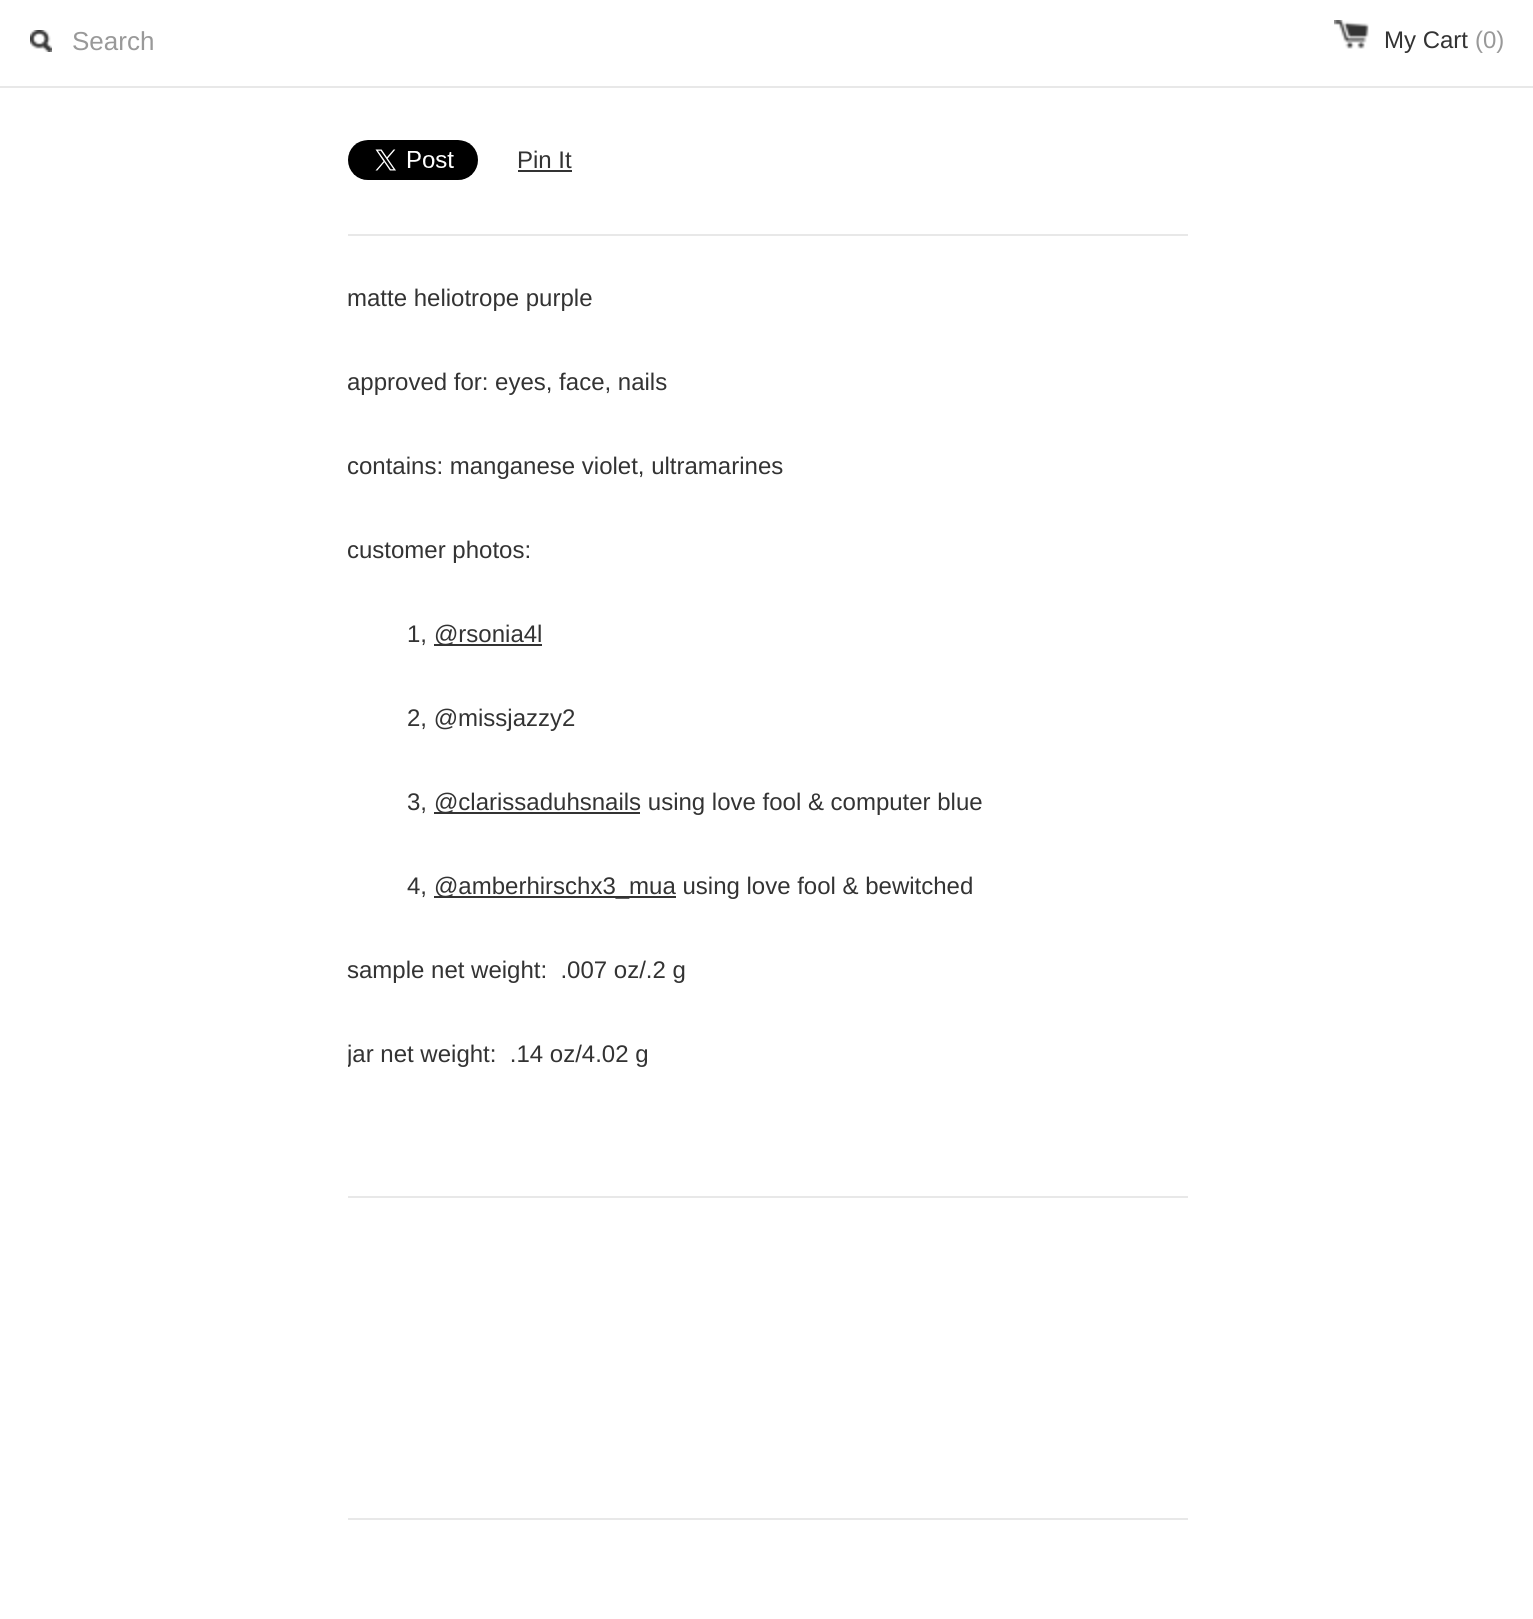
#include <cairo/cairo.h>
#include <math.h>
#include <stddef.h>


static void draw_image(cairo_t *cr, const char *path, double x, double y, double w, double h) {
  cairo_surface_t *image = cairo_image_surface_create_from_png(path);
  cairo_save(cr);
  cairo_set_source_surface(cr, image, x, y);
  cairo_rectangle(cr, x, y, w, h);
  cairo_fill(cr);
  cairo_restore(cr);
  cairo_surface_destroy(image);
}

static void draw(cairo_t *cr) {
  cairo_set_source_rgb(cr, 1, 1, 1);
  cairo_paint(cr);
  cairo_set_source_rgb(cr, 232 / 255.0, 232 / 255.0, 232 / 255.0);
  cairo_rectangle(cr, 0, 86, 1533, 2);
  cairo_fill(cr);
  draw_image(cr, "images/1.png", 30, 30, 22, 22);
  draw_image(cr, "images/2.png", 1334, 20, 35, 29);
  draw_image(cr, "images/3.png", 348, 140, 130, 40);
  cairo_set_source_rgb(cr, 51 / 255.0, 51 / 255.0, 51 / 255.0);
  cairo_rectangle(cr, 518, 170, 54, 2);
  cairo_fill(cr);
  cairo_set_source_rgb(cr, 232 / 255.0, 232 / 255.0, 232 / 255.0);
  cairo_rectangle(cr, 348, 234, 840, 2);
  cairo_fill(cr);
  cairo_set_source_rgb(cr, 51 / 255.0, 51 / 255.0, 51 / 255.0);
  cairo_rectangle(cr, 434, 644, 108, 2);
  cairo_fill(cr);
  cairo_rectangle(cr, 434, 812, 206, 2);
  cairo_fill(cr);
  cairo_rectangle(cr, 434, 896, 242, 2);
  cairo_fill(cr);
  cairo_set_source_rgb(cr, 232 / 255.0, 232 / 255.0, 232 / 255.0);
  cairo_rectangle(cr, 348, 1196, 840, 2);
  cairo_fill(cr);
  cairo_rectangle(cr, 348, 1518, 840, 2);
  cairo_fill(cr);
  cairo_select_font_face(cr, "Liberation Sans", CAIRO_FONT_SLANT_NORMAL, CAIRO_FONT_WEIGHT_NORMAL);
  cairo_set_font_size(cr, 26);
  cairo_set_source_rgb(cr, 153 / 255.0, 153 / 255.0, 153 / 255.0);
  cairo_move_to(cr, 72, 50);
  cairo_show_text(cr, "Search");
  cairo_set_font_size(cr, 24);
  cairo_set_source_rgb(cr, 51 / 255.0, 51 / 255.0, 51 / 255.0);
  cairo_move_to(cr, 1384, 48);
  cairo_show_text(cr, "My Cart");
  cairo_set_source_rgb(cr, 153 / 255.0, 153 / 255.0, 153 / 255.0);
  cairo_move_to(cr, 1475, 48);
  cairo_show_text(cr, "(0)");
  cairo_set_source_rgb(cr, 51 / 255.0, 51 / 255.0, 51 / 255.0);
  cairo_move_to(cr, 517, 168);
  cairo_show_text(cr, "Pin It");
  cairo_move_to(cr, 347, 306);
  cairo_show_text(cr, "matte heliotrope purple");
  cairo_move_to(cr, 347, 390);
  cairo_show_text(cr, "approved for: eyes, face, nails");
  cairo_move_to(cr, 347, 474);
  cairo_show_text(cr, "contains: manganese violet, ultramarines");
  cairo_move_to(cr, 347, 558);
  cairo_show_text(cr, "customer photos:");
  cairo_move_to(cr, 407, 642);
  cairo_show_text(cr, "1,");
  cairo_move_to(cr, 434, 642);
  cairo_show_text(cr, "@rsonia4l");
  cairo_move_to(cr, 407, 726);
  cairo_show_text(cr, "2, @missjazzy2");
  cairo_move_to(cr, 407, 810);
  cairo_show_text(cr, "3,");
  cairo_move_to(cr, 434, 810);
  cairo_show_text(cr, "@clarissaduhsnails using love fool & computer blue");
  cairo_move_to(cr, 407, 894);
  cairo_show_text(cr, "4,");
  cairo_move_to(cr, 434, 894);
  cairo_show_text(cr, "@amberhirschx3_mua using love fool & bewitched");
  cairo_move_to(cr, 347, 978);
  cairo_show_text(cr, "sample net weight:  .007 oz/.2 g");
  cairo_save(cr);
  cairo_rectangle(cr, 348, 0, 840, 1136);
  cairo_clip(cr);
  cairo_move_to(cr, 347, 1062);
  cairo_show_text(cr, "jar net weight:  .14 oz/4.02 g");
  cairo_restore(cr);
}

int main(void) {
  cairo_surface_t *surface = cairo_image_surface_create(CAIRO_FORMAT_RGB24, 1533, 1619);
  cairo_t *cr = cairo_create(surface);
  cairo_font_options_t *options = cairo_font_options_create();
  cairo_font_options_set_hint_metrics(options, CAIRO_HINT_METRICS_OFF);
  cairo_font_options_set_hint_style(options, CAIRO_HINT_STYLE_NONE);
  cairo_set_font_options(cr, options);
  cairo_set_miter_limit(cr, 4);
  draw(cr);
  cairo_surface_write_to_png(surface, "out.png");
  cairo_font_options_destroy(options);
  cairo_destroy(cr);
  cairo_surface_destroy(surface);
  return 0;
}
